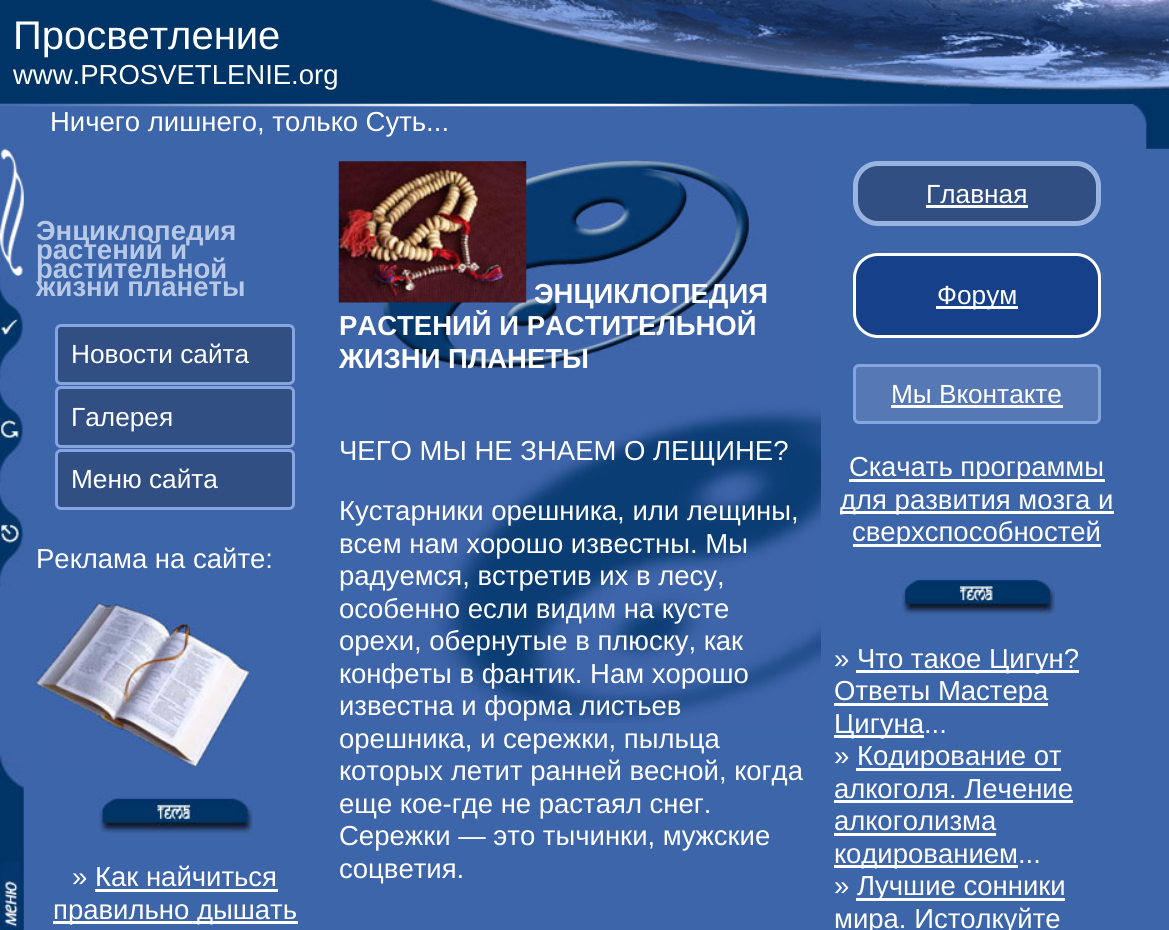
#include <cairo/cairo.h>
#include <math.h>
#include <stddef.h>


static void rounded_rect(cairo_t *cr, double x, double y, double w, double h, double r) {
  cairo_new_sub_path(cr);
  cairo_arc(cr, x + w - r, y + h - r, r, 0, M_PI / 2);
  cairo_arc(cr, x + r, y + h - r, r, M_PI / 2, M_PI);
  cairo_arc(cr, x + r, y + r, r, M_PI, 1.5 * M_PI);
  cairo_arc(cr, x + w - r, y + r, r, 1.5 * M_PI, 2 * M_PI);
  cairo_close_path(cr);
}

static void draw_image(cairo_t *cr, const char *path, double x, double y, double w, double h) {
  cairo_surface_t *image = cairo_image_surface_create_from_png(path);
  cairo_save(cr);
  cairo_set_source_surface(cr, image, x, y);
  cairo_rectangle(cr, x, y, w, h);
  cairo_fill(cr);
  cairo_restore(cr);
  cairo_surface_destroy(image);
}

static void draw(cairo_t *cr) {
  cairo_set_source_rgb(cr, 0, 52 / 255.0, 102 / 255.0);
  cairo_paint(cr);
  draw_image(cr, "images/1.png", 430, 0, 739, 91);
  cairo_set_source_rgb(cr, 61 / 255.0, 101 / 255.0, 170 / 255.0);
  cairo_rectangle(cr, 0, 104, 1169, 826);
  cairo_fill(cr);
  draw_image(cr, "images/2.png", 0, 103, 972, 4);
  draw_image(cr, "images/3.png", 1132, 103, 37, 46);
  draw_image(cr, "images/4.png", 0, 148, 24, 129);
  draw_image(cr, "images/5.png", 0, 276, 24, 104);
  draw_image(cr, "images/6.png", 0, 390, 24, 93);
  draw_image(cr, "images/7.png", 0, 494, 24, 93);
  draw_image(cr, "images/8.png", 0, 755, 24, 175);
  cairo_set_source_rgb(cr, 49 / 255.0, 79 / 255.0, 130 / 255.0);
  rounded_rect(cr, 56.5, 325.5, 237, 58, 4.5);
  cairo_fill_preserve(cr);
  cairo_set_source_rgb(cr, 132 / 255.0, 165 / 255.0, 222 / 255.0);
  cairo_set_line_width(cr, 3);
  cairo_stroke(cr);
  cairo_set_source_rgb(cr, 49 / 255.0, 79 / 255.0, 130 / 255.0);
  rounded_rect(cr, 56.5, 387.5, 237, 59, 4.5);
  cairo_fill_preserve(cr);
  cairo_set_source_rgb(cr, 132 / 255.0, 165 / 255.0, 222 / 255.0);
  cairo_stroke(cr);
  cairo_set_source_rgb(cr, 49 / 255.0, 79 / 255.0, 130 / 255.0);
  rounded_rect(cr, 56.5, 450.5, 237, 58, 4.5);
  cairo_fill_preserve(cr);
  cairo_set_source_rgb(cr, 132 / 255.0, 165 / 255.0, 222 / 255.0);
  cairo_stroke(cr);
  draw_image(cr, "images/9.png", 36, 602, 213, 166);
  draw_image(cr, "images/10.png", 98, 795, 155, 39);
  cairo_set_source_rgb(cr, 1, 1, 1);
  cairo_rectangle(cr, 95, 889, 183, 3);
  cairo_fill(cr);
  cairo_rectangle(cr, 53, 921, 245, 3);
  cairo_fill(cr);
  draw_image(cr, "images/11.png", 376, 159, 445, 564);
  draw_image(cr, "images/12.png", 338, 161, 189, 142);
  cairo_set_source_rgb(cr, 49 / 255.0, 79 / 255.0, 130 / 255.0);
  rounded_rect(cr, 855.5, 163.5, 243, 60, 22.5);
  cairo_fill_preserve(cr);
  cairo_set_source_rgb(cr, 154 / 255.0, 180 / 255.0, 225 / 255.0);
  cairo_set_line_width(cr, 5);
  cairo_stroke(cr);
  cairo_set_source_rgb(cr, 1, 1, 1);
  cairo_rectangle(cr, 926, 205, 102, 3);
  cairo_fill(cr);
  cairo_set_source_rgb(cr, 22 / 255.0, 65 / 255.0, 138 / 255.0);
  rounded_rect(cr, 854.5, 254.5, 245, 82, 23.5);
  cairo_fill_preserve(cr);
  cairo_set_source_rgb(cr, 1, 1, 1);
  cairo_set_line_width(cr, 3);
  cairo_stroke(cr);
  cairo_rectangle(cr, 936, 306, 82, 3);
  cairo_fill(cr);
  cairo_set_source_rgb(cr, 86 / 255.0, 121 / 255.0, 182 / 255.0);
  rounded_rect(cr, 854.5, 365.5, 245, 57, 4.5);
  cairo_fill_preserve(cr);
  cairo_set_source_rgb(cr, 132 / 255.0, 165 / 255.0, 222 / 255.0);
  cairo_stroke(cr);
  cairo_set_source_rgb(cr, 1, 1, 1);
  cairo_rectangle(cr, 891, 405, 172, 3);
  cairo_fill(cr);
  cairo_rectangle(cr, 849, 479, 256, 3);
  cairo_fill(cr);
  cairo_rectangle(cr, 840, 511, 274, 3);
  cairo_fill(cr);
  cairo_rectangle(cr, 853, 544, 248, 3);
  cairo_fill(cr);
  draw_image(cr, "images/13.png", 900, 576, 155, 39);
  cairo_rectangle(cr, 856, 670, 223, 3);
  cairo_fill(cr);
  cairo_rectangle(cr, 834, 703, 214, 3);
  cairo_fill(cr);
  cairo_rectangle(cr, 834, 735, 90, 3);
  cairo_fill(cr);
  cairo_rectangle(cr, 856, 768, 205, 3);
  cairo_fill(cr);
  cairo_rectangle(cr, 834, 800, 239, 3);
  cairo_fill(cr);
  cairo_rectangle(cr, 834, 833, 162, 3);
  cairo_fill(cr);
  cairo_rectangle(cr, 834, 865, 184, 3);
  cairo_fill(cr);
  cairo_rectangle(cr, 856, 898, 209, 3);
  cairo_fill(cr);
  cairo_select_font_face(cr, "Liberation Sans", CAIRO_FONT_SLANT_NORMAL, CAIRO_FONT_WEIGHT_NORMAL);
  cairo_set_font_size(cr, 40);
  cairo_move_to(cr, 13, 49);
  cairo_show_text(cr, "Просветление");
  cairo_set_font_size(cr, 27.5);
  cairo_move_to(cr, 13, 84);
  cairo_show_text(cr, "www.PROSVETLENIE.org");
  cairo_move_to(cr, 50, 131);
  cairo_show_text(cr, "Ничего лишнего, только Суть...");
  cairo_select_font_face(cr, "Liberation Sans", CAIRO_FONT_SLANT_NORMAL, CAIRO_FONT_WEIGHT_BOLD);
  cairo_set_source_rgb(cr, 183 / 255.0, 201 / 255.0, 230 / 255.0);
  cairo_move_to(cr, 36, 240);
  cairo_show_text(cr, "Энциклопедия");
  cairo_move_to(cr, 36, 259);
  cairo_show_text(cr, "растений и");
  cairo_move_to(cr, 36, 278);
  cairo_show_text(cr, "растительной");
  cairo_move_to(cr, 36, 296);
  cairo_show_text(cr, "жизни планеты");
  cairo_select_font_face(cr, "Liberation Sans", CAIRO_FONT_SLANT_NORMAL, CAIRO_FONT_WEIGHT_NORMAL);
  cairo_set_font_size(cr, 26.25);
  cairo_set_source_rgb(cr, 1, 1, 1);
  cairo_move_to(cr, 71, 363);
  cairo_show_text(cr, "Новости сайта");
  cairo_move_to(cr, 71, 426);
  cairo_show_text(cr, "Галерея");
  cairo_move_to(cr, 71, 488);
  cairo_show_text(cr, "Меню сайта");
  cairo_set_font_size(cr, 27.5);
  cairo_move_to(cr, 36, 568);
  cairo_show_text(cr, "Реклама на сайте:");
  cairo_move_to(cr, 72, 886);
  cairo_show_text(cr, "» Как найчиться");
  cairo_move_to(cr, 53, 919);
  cairo_show_text(cr, "правильно дышать");
  cairo_select_font_face(cr, "Liberation Sans", CAIRO_FONT_SLANT_NORMAL, CAIRO_FONT_WEIGHT_BOLD);
  cairo_move_to(cr, 534, 303);
  cairo_show_text(cr, "ЭНЦИКЛОПЕДИЯ");
  cairo_move_to(cr, 339, 335);
  cairo_show_text(cr, "РАСТЕНИЙ И РАСТИТЕЛЬНОЙ");
  cairo_move_to(cr, 339, 368);
  cairo_show_text(cr, "ЖИЗНИ ПЛАНЕТЫ");
  cairo_select_font_face(cr, "Liberation Sans", CAIRO_FONT_SLANT_NORMAL, CAIRO_FONT_WEIGHT_NORMAL);
  cairo_move_to(cr, 339, 460);
  cairo_show_text(cr, "ЧЕГО МЫ НЕ ЗНАЕМ О ЛЕЩИНЕ?");
  cairo_move_to(cr, 339, 520);
  cairo_show_text(cr, "Кустарники орешника, или лещины,");
  cairo_move_to(cr, 339, 553);
  cairo_show_text(cr, "всем нам хорошо известны. Мы");
  cairo_move_to(cr, 339, 585);
  cairo_show_text(cr, "радуемся, встретив их в лесу,");
  cairo_move_to(cr, 339, 618);
  cairo_show_text(cr, "особенно если видим на кусте");
  cairo_move_to(cr, 339, 650);
  cairo_show_text(cr, "орехи, обернутые в плюску, как");
  cairo_move_to(cr, 339, 683);
  cairo_show_text(cr, "конфеты в фантик. Нам хорошо");
  cairo_move_to(cr, 339, 715);
  cairo_show_text(cr, "известна и форма листьев");
  cairo_move_to(cr, 339, 748);
  cairo_show_text(cr, "орешника, и сережки, пыльца");
  cairo_move_to(cr, 339, 780);
  cairo_show_text(cr, "которых летит ранней весной, когда");
  cairo_move_to(cr, 339, 813);
  cairo_show_text(cr, "еще кое-где не растаял снег.");
  cairo_move_to(cr, 339, 845);
  cairo_show_text(cr, "Сережки — это тычинки, мужские");
  cairo_move_to(cr, 339, 878);
  cairo_show_text(cr, "соцветия.");
  cairo_set_font_size(cr, 26.25);
  cairo_move_to(cr, 926, 203);
  cairo_show_text(cr, "Главная");
  cairo_move_to(cr, 937, 304);
  cairo_show_text(cr, "Форум");
  cairo_move_to(cr, 891, 403);
  cairo_show_text(cr, "Мы Вконтакте");
  cairo_set_font_size(cr, 27.5);
  cairo_move_to(cr, 849, 476);
  cairo_show_text(cr, "Скачать программы");
  cairo_move_to(cr, 840, 509);
  cairo_show_text(cr, "для развития мозга и");
  cairo_move_to(cr, 852, 541);
  cairo_show_text(cr, "сверхспособностей");
  cairo_move_to(cr, 834, 668);
  cairo_show_text(cr, "»");
  cairo_move_to(cr, 857, 668);
  cairo_show_text(cr, "Что такое Цигун?");
  cairo_move_to(cr, 834, 700);
  cairo_show_text(cr, "Ответы Мастера");
  cairo_move_to(cr, 834, 733);
  cairo_show_text(cr, "Цигуна...");
  cairo_move_to(cr, 834, 765);
  cairo_show_text(cr, "»");
  cairo_move_to(cr, 857, 765);
  cairo_show_text(cr, "Кодирование от");
  cairo_move_to(cr, 834, 798);
  cairo_show_text(cr, "алкоголя. Лечение");
  cairo_move_to(cr, 834, 830);
  cairo_show_text(cr, "алкоголизма");
  cairo_move_to(cr, 834, 863);
  cairo_show_text(cr, "кодированием...");
  cairo_move_to(cr, 834, 895);
  cairo_show_text(cr, "»");
  cairo_move_to(cr, 857, 895);
  cairo_show_text(cr, "Лучшие сонники");
  cairo_move_to(cr, 834, 928);
  cairo_show_text(cr, "мира. Истолкуйте");
}

int main(void) {
  cairo_surface_t *surface = cairo_image_surface_create(CAIRO_FORMAT_RGB24, 1169, 930);
  cairo_t *cr = cairo_create(surface);
  cairo_font_options_t *options = cairo_font_options_create();
  cairo_font_options_set_hint_metrics(options, CAIRO_HINT_METRICS_OFF);
  cairo_font_options_set_hint_style(options, CAIRO_HINT_STYLE_NONE);
  cairo_set_font_options(cr, options);
  cairo_set_miter_limit(cr, 4);
  draw(cr);
  cairo_surface_write_to_png(surface, "out.png");
  cairo_font_options_destroy(options);
  cairo_destroy(cr);
  cairo_surface_destroy(surface);
  return 0;
}
